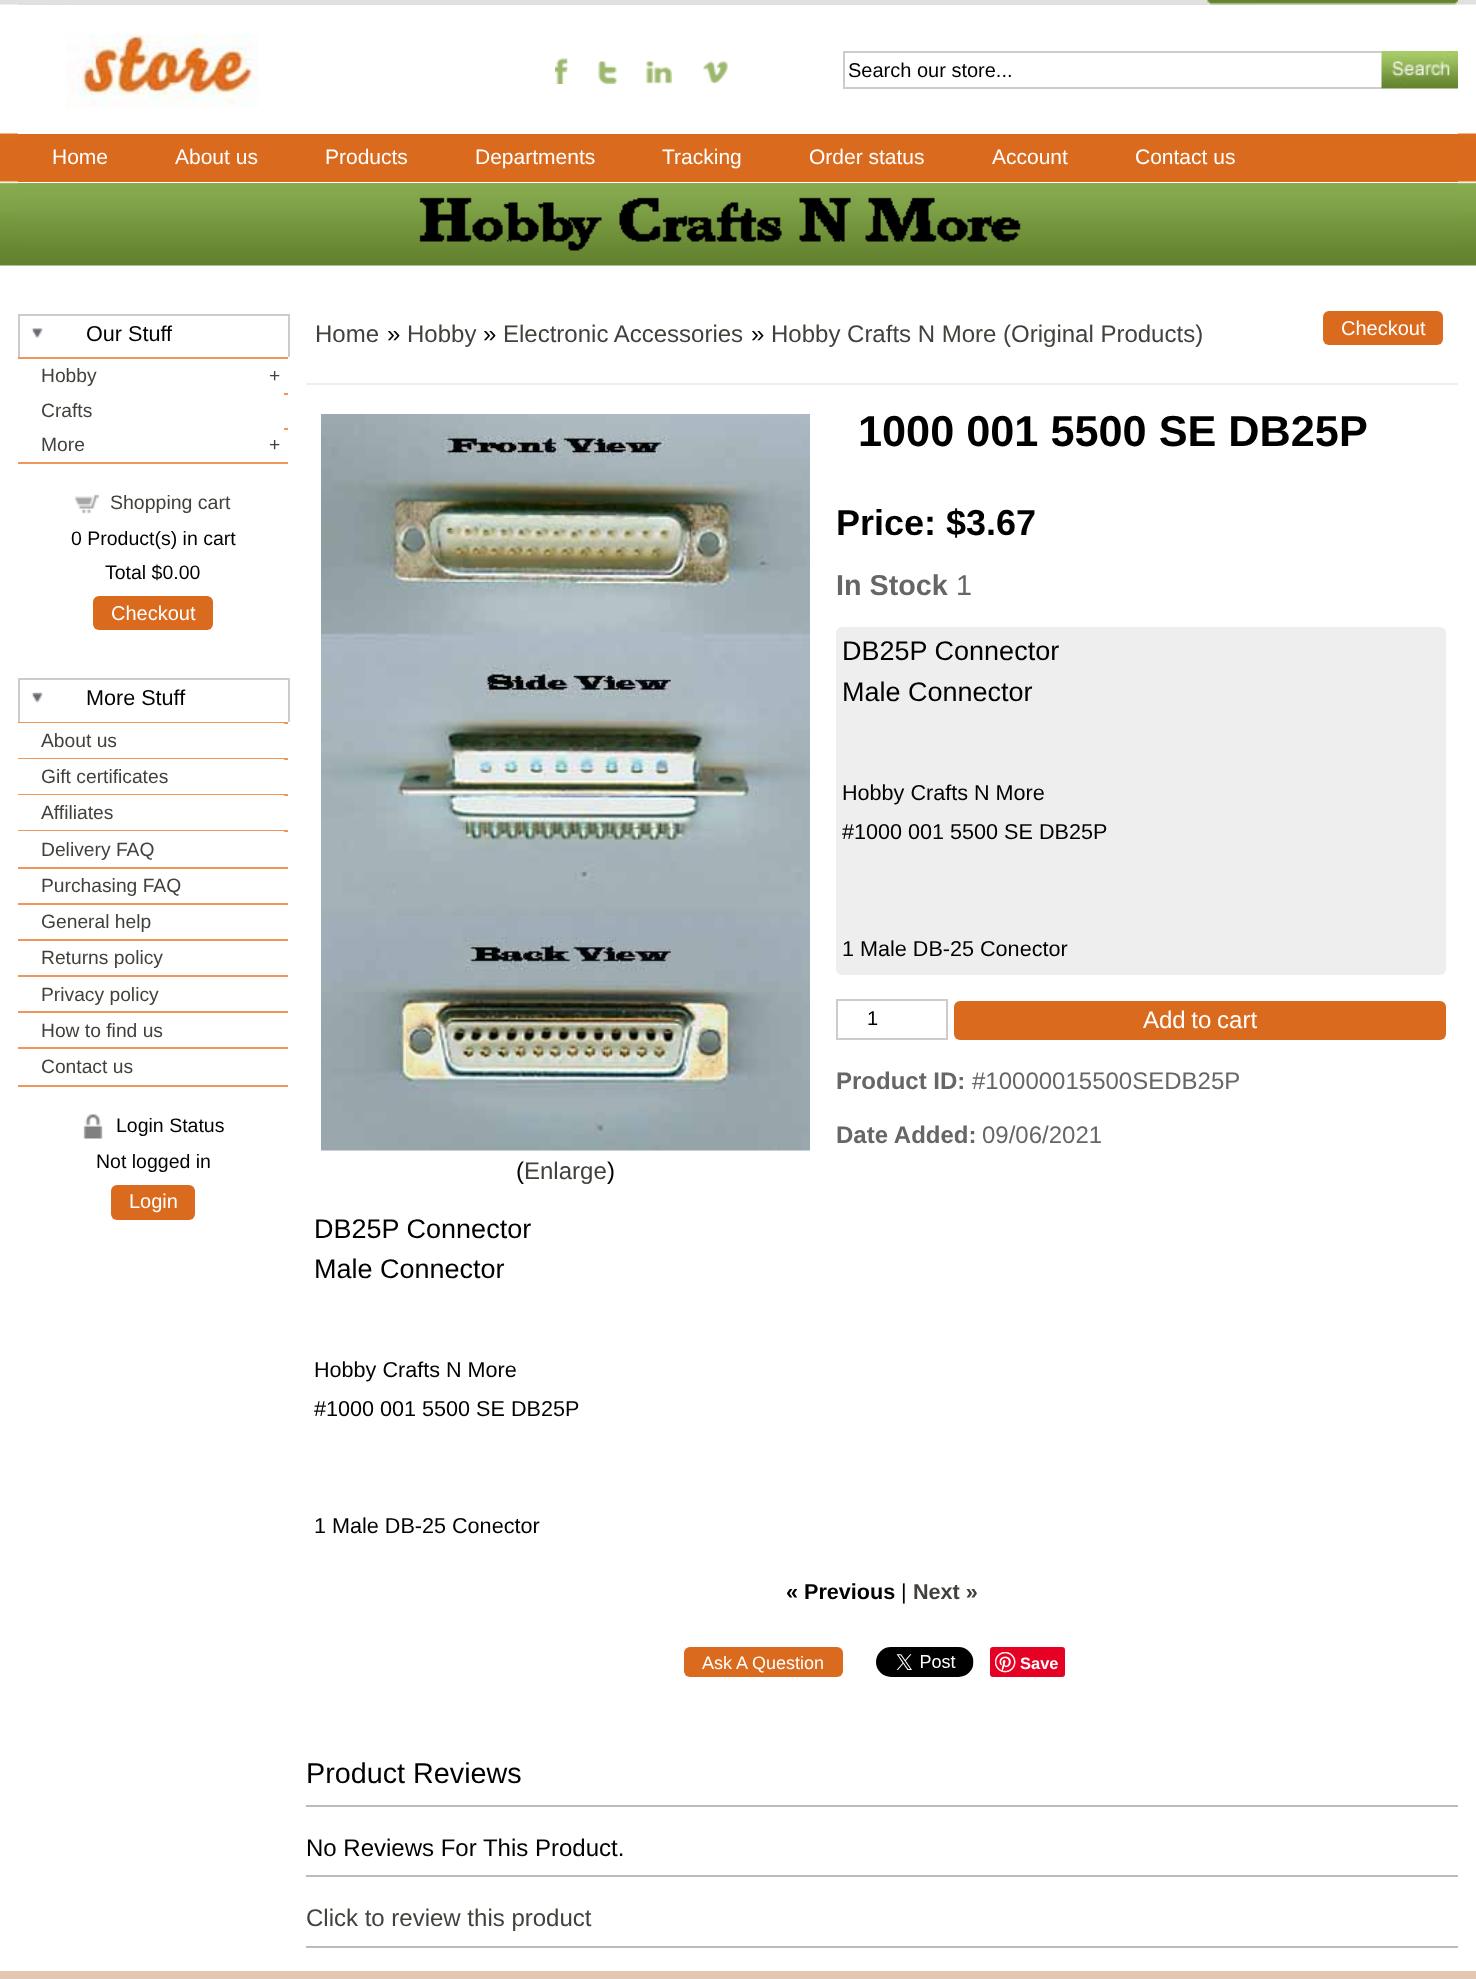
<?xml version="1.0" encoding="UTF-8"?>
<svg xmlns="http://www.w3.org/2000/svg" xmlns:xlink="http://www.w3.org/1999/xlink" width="1476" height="1979">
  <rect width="100%" height="100%" fill="#ffffff" />
  <image x="0" y="0" width="1476" height="266" xlink:href="image1.png" />
  <rect x="18" y="131" width="1440" height="135" fill="#ffffff" />
  <rect x="18" y="4" width="1440" height="1" fill="#e0e0e0" />
  <image x="1207" y="0" width="251" height="5" xlink:href="image2.png" />
  <image x="66" y="34" width="193" height="74" xlink:href="image3.png" />
  <image x="555" y="58" width="14" height="26" xlink:href="image4.png" />
  <image x="598" y="61" width="19" height="23" xlink:href="image5.png" />
  <image x="646" y="61" width="26" height="23" xlink:href="image6.png" />
  <image x="703" y="61" width="25" height="23" xlink:href="image7.png" />
  <rect x="843" y="51" width="539" height="2" fill="#cccccc" />
  <rect x="843" y="87" width="539" height="2" fill="#cccccc" />
  <rect x="843" y="51" width="2" height="38" fill="#cccccc" />
  <image x="1381" y="51" width="77" height="38" xlink:href="image8.png" />
  <rect x="1269" y="134" width="189" height="48" fill="#da6b1d" />
  <rect x="18" y="134" width="1251" height="48" fill="#da6a1e" />
  <image x="18" y="183" width="1440" height="83" xlink:href="image9.png" />
  <image x="419" y="197" width="602" height="54" xlink:href="image10.png" />
  <image x="31" y="328" width="12" height="10" xlink:href="image11.png" />
  <rect x="18" y="314" width="272" height="2" fill="#cccccc" />
  <rect x="288" y="314" width="2" height="43" fill="#cccccc" />
  <rect x="18" y="314" width="2" height="43" fill="#cccccc" />
  <rect x="18" y="357" width="270" height="2" fill="#ef965a" />
  <rect x="284" y="393" width="4" height="2" fill="#ef965a" />
  <rect x="284" y="428" width="4" height="2" fill="#ef965a" />
  <rect x="18" y="462" width="270" height="2" fill="#ef965a" />
  <image x="75" y="494" width="24" height="20" xlink:href="image12.png" />
  <rect x="93" y="596" width="120" height="34" rx="6" fill="#da6a1e" />
  <image x="31" y="692" width="12" height="11" xlink:href="image13.png" />
  <rect x="18" y="678" width="272" height="2" fill="#cccccc" />
  <rect x="288" y="678" width="2" height="44" fill="#cccccc" />
  <rect x="18" y="678" width="2" height="44" fill="#cccccc" />
  <rect x="18" y="722" width="270" height="2" fill="#ef965a" />
  <rect x="18" y="758" width="270" height="2" fill="#ef965a" />
  <rect x="18" y="723" width="266" height="1" fill="#ffffff" />
  <rect x="18" y="794" width="270" height="2" fill="#ef965a" />
  <rect x="18" y="759" width="266" height="1" fill="#ffffff" />
  <rect x="18" y="830" width="270" height="2" fill="#ef965a" />
  <rect x="18" y="795" width="266" height="1" fill="#ffffff" />
  <rect x="18" y="867" width="270" height="2" fill="#ef965a" />
  <rect x="18" y="831" width="266" height="1" fill="#ffffff" />
  <rect x="18" y="903" width="270" height="2" fill="#ef965a" />
  <rect x="18" y="939" width="270" height="2" fill="#ef965a" />
  <rect x="18" y="975" width="270" height="2" fill="#ef965a" />
  <rect x="18" y="1011" width="270" height="2" fill="#ef965a" />
  <rect x="18" y="1047" width="270" height="2" fill="#ef965a" />
  <rect x="18" y="1085" width="270" height="2" fill="#ef965a" />
  <image x="83" y="1114" width="20" height="25" xlink:href="image14.png" />
  <rect x="111" y="1185" width="84" height="35" rx="6" fill="#da6a1e" />
  <rect x="306" y="383" width="1152" height="2" fill="#eeeeee" />
  <rect x="1323" y="311" width="120" height="34" rx="6" fill="#da6a1e" />
  <rect x="836" y="627" width="610" height="348" rx="6" fill="#eeeeee" />
  <rect x="837" y="1000" width="110" height="39" fill="none" stroke="#cccccc" stroke-width="2" />
  <rect x="954" y="1001" width="492" height="39" rx="6" fill="#da6a1e" />
  <image x="321" y="414" width="489" height="737" xlink:href="image15.png" />
  <rect x="684" y="1647" width="159" height="30" rx="6" fill="#da6a1e" />
  <image x="876" y="1647" width="98" height="30" xlink:href="image16.png" />
  <rect x="990" y="1647" width="75" height="30" rx="3" fill="#e60023" />
  <image x="995" y="1652" width="21" height="21" xlink:href="image17.png" />
  <rect x="306" y="1805" width="1152" height="2" fill="#bbbbbb" />
  <rect x="306" y="1875" width="1152" height="2" fill="#bbbbbb" />
  <rect x="306" y="1946" width="1152" height="2" fill="#bbbbbb" />
  <rect y="1971" width="1476" height="8" fill="#e2c7b2" />
  <text x="848" y="77" style="font-family: Liberation Sans; font-size: 20px; fill: #000000">Search our store...</text>
  <text x="52" y="164" style="font-family: Liberation Sans; font-size: 21px; fill: #ffffff">Home</text>
  <text x="175" y="164" style="font-family: Liberation Sans; font-size: 21px; fill: #ffffff">About us</text>
  <text x="325" y="164" style="font-family: Liberation Sans; font-size: 21px; fill: #ffffff">Products</text>
  <text x="475" y="164" style="font-family: Liberation Sans; font-size: 21px; fill: #ffffff">Departments</text>
  <text x="662" y="164" style="font-family: Liberation Sans; font-size: 21px; fill: #ffffff">Tracking</text>
  <text x="809" y="164" style="font-family: Liberation Sans; font-size: 21px; fill: #ffffff">Order status</text>
  <text x="992" y="164" style="font-family: Liberation Sans; font-size: 21px; fill: #ffffff">Account</text>
  <text x="1135" y="164" style="font-family: Liberation Sans; font-size: 21px; fill: #ffffff">Contact us</text>
  <text x="86" y="341" style="font-family: Liberation Sans; font-size: 21.6px; fill: #000000">Our Stuff</text>
  <text x="41" y="382" style="font-family: Liberation Sans; font-size: 19.25px; fill: #42413c">Hobby</text>
  <text x="269" y="382" style="font-family: Liberation Sans; font-size: 19.25px; fill: #42413c">+</text>
  <text x="41" y="417" style="font-family: Liberation Sans; font-size: 19.25px; fill: #42413c">Crafts</text>
  <text x="41" y="451" style="font-family: Liberation Sans; font-size: 19.25px; fill: #42413c">More</text>
  <text x="269" y="451" style="font-family: Liberation Sans; font-size: 19.25px; fill: #42413c">+</text>
  <text x="110" y="509" style="font-family: Liberation Sans; font-size: 19.5px; fill: #42413c">Shopping cart</text>
  <text x="71" y="545" style="font-family: Liberation Sans; font-size: 19.5px; fill: #000000">0 Product(s) in cart</text>
  <text x="105" y="579" style="font-family: Liberation Sans; font-size: 19.5px; fill: #000000">Total $0.00</text>
  <text x="111" y="620" style="font-family: Liberation Sans; font-size: 20px; fill: #ffffff">Checkout</text>
  <text x="86" y="705" style="font-family: Liberation Sans; font-size: 21.6px; fill: #000000">More Stuff</text>
  <text x="41" y="747" style="font-family: Liberation Sans; font-size: 19.25px; fill: #42413c">About us</text>
  <text x="41" y="783" style="font-family: Liberation Sans; font-size: 19.25px; fill: #42413c">Gift certificates</text>
  <text x="41" y="819" style="font-family: Liberation Sans; font-size: 19.25px; fill: #42413c">Affiliates</text>
  <text x="41" y="856" style="font-family: Liberation Sans; font-size: 19.25px; fill: #42413c">Delivery FAQ</text>
  <text x="41" y="892" style="font-family: Liberation Sans; font-size: 19.25px; fill: #42413c">Purchasing FAQ</text>
  <text x="41" y="928" style="font-family: Liberation Sans; font-size: 19.25px; fill: #42413c">General help</text>
  <text x="41" y="964" style="font-family: Liberation Sans; font-size: 19.25px; fill: #42413c">Returns policy</text>
  <text x="41" y="1001" style="font-family: Liberation Sans; font-size: 19.25px; fill: #42413c">Privacy policy</text>
  <text x="41" y="1037" style="font-family: Liberation Sans; font-size: 19.25px; fill: #42413c">How to find us</text>
  <text x="41" y="1073" style="font-family: Liberation Sans; font-size: 19.25px; fill: #42413c">Contact us</text>
  <text x="116" y="1132" style="font-family: Liberation Sans; font-size: 19.5px; fill: #000000">Login Status</text>
  <text x="96" y="1168" style="font-family: Liberation Sans; font-size: 19.5px; fill: #000000">Not logged in</text>
  <text x="129" y="1208" style="font-family: Liberation Sans; font-size: 20px; fill: #ffffff">Login</text>
  <text x="315" y="342" style="font-family: Liberation Sans; font-size: 24px; fill: #42413c">Home</text>
  <text x="387" y="342" style="font-family: Liberation Sans; font-size: 24px; fill: #000000">»</text>
  <text x="407" y="342" style="font-family: Liberation Sans; font-size: 24px; fill: #42413c">Hobby</text>
  <text x="483" y="342" style="font-family: Liberation Sans; font-size: 24px; fill: #000000">»</text>
  <text x="503" y="342" style="font-family: Liberation Sans; font-size: 24px; fill: #42413c">Electronic Accessories</text>
  <text x="751" y="342" style="font-family: Liberation Sans; font-size: 24px; fill: #000000">»</text>
  <text x="771" y="342" style="font-family: Liberation Sans; font-size: 24px; fill: #42413c">Hobby Crafts N More (Original Products)</text>
  <text x="1341" y="335" style="font-family: Liberation Sans; font-size: 20px; fill: #ffffff">Checkout</text>
  <text x="858" y="446" style="font-family: Liberation Sans; font-size: 43.25px; font-weight: bold; fill: #000000">1000 001 5500 SE DB25P</text>
  <text x="836" y="535" style="font-family: Liberation Sans; font-size: 36px; font-weight: bold; fill: #000000">Price: $3.67</text>
  <text x="836" y="595" style="font-family: Liberation Sans; font-size: 28.75px; font-weight: bold; fill: #666666">In Stock</text>
  <text x="956" y="595" style="font-family: Liberation Sans; font-size: 28.75px; fill: #666666">1</text>
  <text x="842" y="660" style="font-family: Liberation Sans; font-size: 27px; fill: #000000">DB25P Connector</text>
  <text x="842" y="701" style="font-family: Liberation Sans; font-size: 27px; fill: #000000">Male Connector</text>
  <text x="842" y="800" style="font-family: Liberation Sans; font-size: 21.6px; fill: #000000">Hobby Crafts N More</text>
  <text x="842" y="839" style="font-family: Liberation Sans; font-size: 21.6px; fill: #000000">#1000 001 5500 SE DB25P</text>
  <text x="842" y="956" style="font-family: Liberation Sans; font-size: 21.6px; fill: #000000">1 Male DB-25 Conector</text>
  <text x="867" y="1025" style="font-family: Liberation Sans; font-size: 20px; fill: #000000">1</text>
  <text x="1143" y="1028" word-spacing="-1" style="font-family: Liberation Sans; font-size: 24px; fill: #ffffff">Add to cart</text>
  <text x="836" y="1089" style="font-family: Liberation Sans; font-size: 24px; font-weight: bold; fill: #666666">Product ID:</text>
  <text x="972" y="1089" style="font-family: Liberation Sans; font-size: 24px; fill: #666666">#10000015500SEDB25P</text>
  <text x="836" y="1143" style="font-family: Liberation Sans; font-size: 24px; font-weight: bold; fill: #666666">Date Added:</text>
  <text x="982" y="1143" style="font-family: Liberation Sans; font-size: 24px; fill: #666666">09/06/2021</text>
  <text x="516" y="1179" style="font-family: Liberation Sans; font-size: 24px; fill: #000000">(</text>
  <text x="524" y="1179" style="font-family: Liberation Sans; font-size: 24px; fill: #42413c">Enlarge</text>
  <text x="607" y="1179" style="font-family: Liberation Sans; font-size: 24px; fill: #000000">)</text>
  <text x="314" y="1238" style="font-family: Liberation Sans; font-size: 27px; fill: #000000">DB25P Connector</text>
  <text x="314" y="1278" style="font-family: Liberation Sans; font-size: 27px; fill: #000000">Male Connector</text>
  <text x="314" y="1377" style="font-family: Liberation Sans; font-size: 21.6px; fill: #000000">Hobby Crafts N More</text>
  <text x="314" y="1416" style="font-family: Liberation Sans; font-size: 21.6px; fill: #000000">#1000 001 5500 SE DB25P</text>
  <text x="314" y="1533" style="font-family: Liberation Sans; font-size: 21.6px; fill: #000000">1 Male DB-25 Conector</text>
  <text x="786" y="1599" style="font-family: Liberation Sans; font-size: 21.6px; font-weight: bold; fill: #000000">« Previous</text>
  <text x="901" y="1599" style="font-family: Liberation Sans; font-size: 21.6px; fill: #000000">|</text>
  <text x="913" y="1599" style="font-family: Liberation Sans; font-size: 21.6px; font-weight: bold; fill: #42413c">Next »</text>
  <text x="702" y="1669" style="font-family: Liberation Sans; font-size: 18px; fill: #ffffff">Ask A Question</text>
  <text x="1020" y="1669" style="font-family: Liberation Sans; font-size: 16.5px; font-weight: bold; fill: #ffffff">Save</text>
  <text x="306" y="1783" style="font-family: Liberation Sans; font-size: 28.75px; fill: #000000">Product Reviews</text>
  <text x="306" y="1856" style="font-family: Liberation Sans; font-size: 24px; fill: #000000">No Reviews For This Product.</text>
  <text x="306" y="1926" style="font-family: Liberation Sans; font-size: 24px; fill: #42413c">Click to review this product</text>
</svg>
